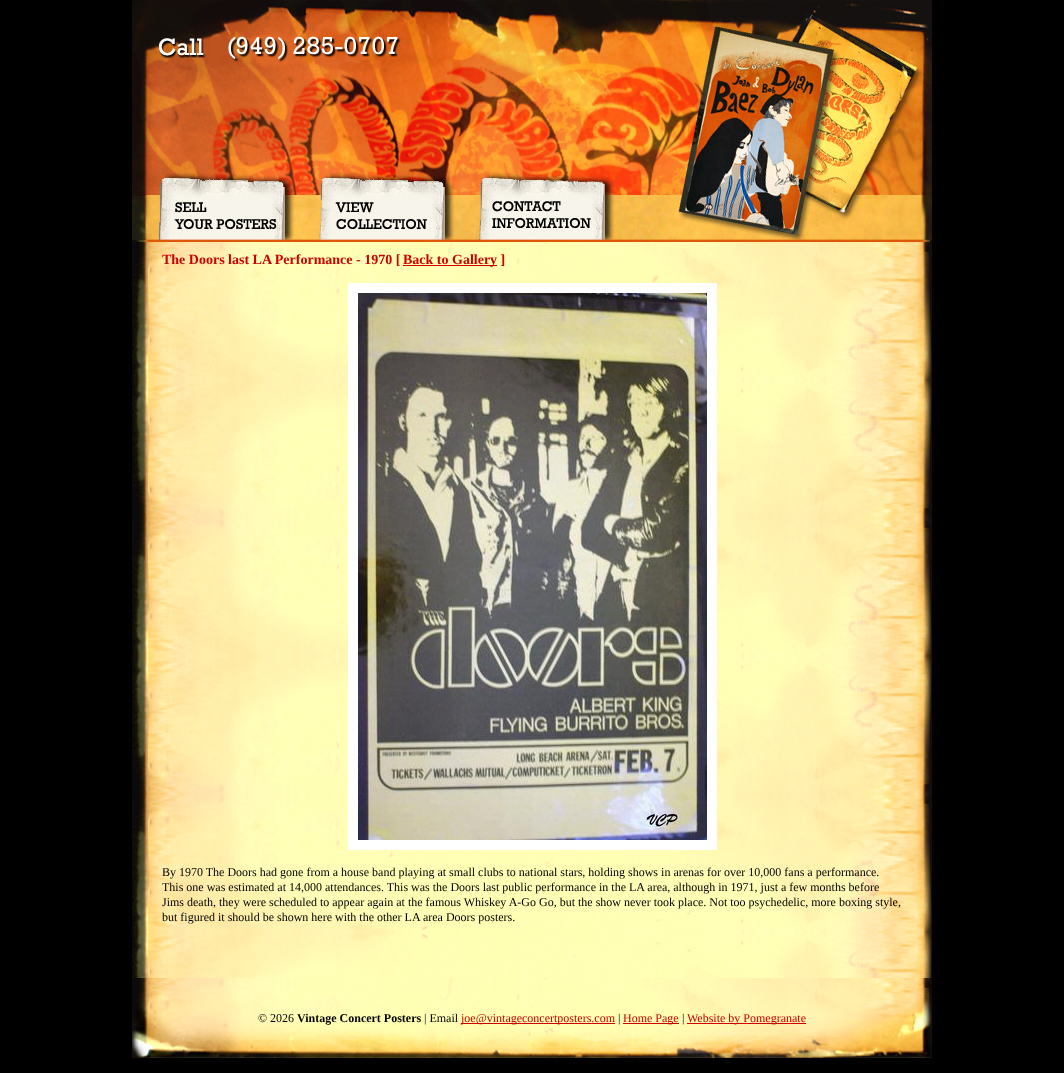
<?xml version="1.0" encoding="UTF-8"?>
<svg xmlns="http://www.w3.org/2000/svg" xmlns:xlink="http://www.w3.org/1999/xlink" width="1064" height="1073">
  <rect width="100%" height="100%" fill="#000000" />
  <image x="132" y="0" width="800" height="242" xlink:href="image1.png" />
  <image x="132" y="242" width="800" height="736" xlink:href="image2.png" />
  <rect x="403" y="265" width="94" height="1" fill="#cc0000" />
  <rect x="353" y="288" width="359" height="557" fill="none" stroke="#ffffff" stroke-width="10" />
  <image x="358" y="293" width="349" height="547" xlink:href="image3.png" />
  <image x="132" y="978" width="800" height="80" xlink:href="image4.png" />
  <rect x="461" y="1023" width="154" height="1" fill="#cc0000" />
  <rect x="623" y="1023" width="56" height="1" fill="#cc0000" />
  <rect x="687" y="1023" width="119" height="1" fill="#cc0000" />
  <text x="162" y="264" style="font-family: Liberation Serif; font-size: 14px; font-weight: bold; fill: #cc0000">The Doors last LA Performance - 1970 [</text>
  <text x="403" y="264" style="font-family: Liberation Serif; font-size: 14px; font-weight: bold; fill: #cc0000">Back to Gallery ]</text>
  <text x="162" y="876" style="font-family: Liberation Serif; font-size: 12px; fill: #000000">By 1970 The Doors had gone from a house band playing at small clubs to national stars, holding shows in arenas for over 10,000 fans a performance.</text>
  <text x="162" y="891" style="font-family: Liberation Serif; font-size: 12px; fill: #000000">This one was estimated at 14,000 attendances. This was the Doors last public performance in the LA area, although in 1971, just a few months before</text>
  <text x="162" y="906" style="font-family: Liberation Serif; font-size: 12px; fill: #000000">Jims death, they were scheduled to appear again at the famous Whiskey A-Go Go, but the show never took place. Not too psychedelic, more boxing style,</text>
  <text x="162" y="921" style="font-family: Liberation Serif; font-size: 12px; fill: #000000">but figured it should be shown here with the other LA area Doors posters.</text>
  <text x="258" y="1022" style="font-family: Liberation Serif; font-size: 12px; fill: #000000">© 2026</text>
  <text x="297" y="1022" style="font-family: Liberation Serif; font-size: 12px; font-weight: bold; fill: #000000">Vintage Concert Posters</text>
  <text x="424" y="1022" style="font-family: Liberation Serif; font-size: 12px; fill: #000000">| Email</text>
  <text x="461" y="1022" style="font-family: Liberation Serif; font-size: 12px; fill: #cc0000">joe@vintageconcertposters.com</text>
  <text x="618" y="1022" style="font-family: Liberation Serif; font-size: 12px; fill: #000000">|</text>
  <text x="623" y="1022" style="font-family: Liberation Serif; font-size: 12px; fill: #cc0000">Home Page</text>
  <text x="682" y="1022" style="font-family: Liberation Serif; font-size: 12px; fill: #000000">|</text>
  <text x="687" y="1022" style="font-family: Liberation Serif; font-size: 12px; fill: #cc0000">Website by Pomegranate</text>
</svg>
